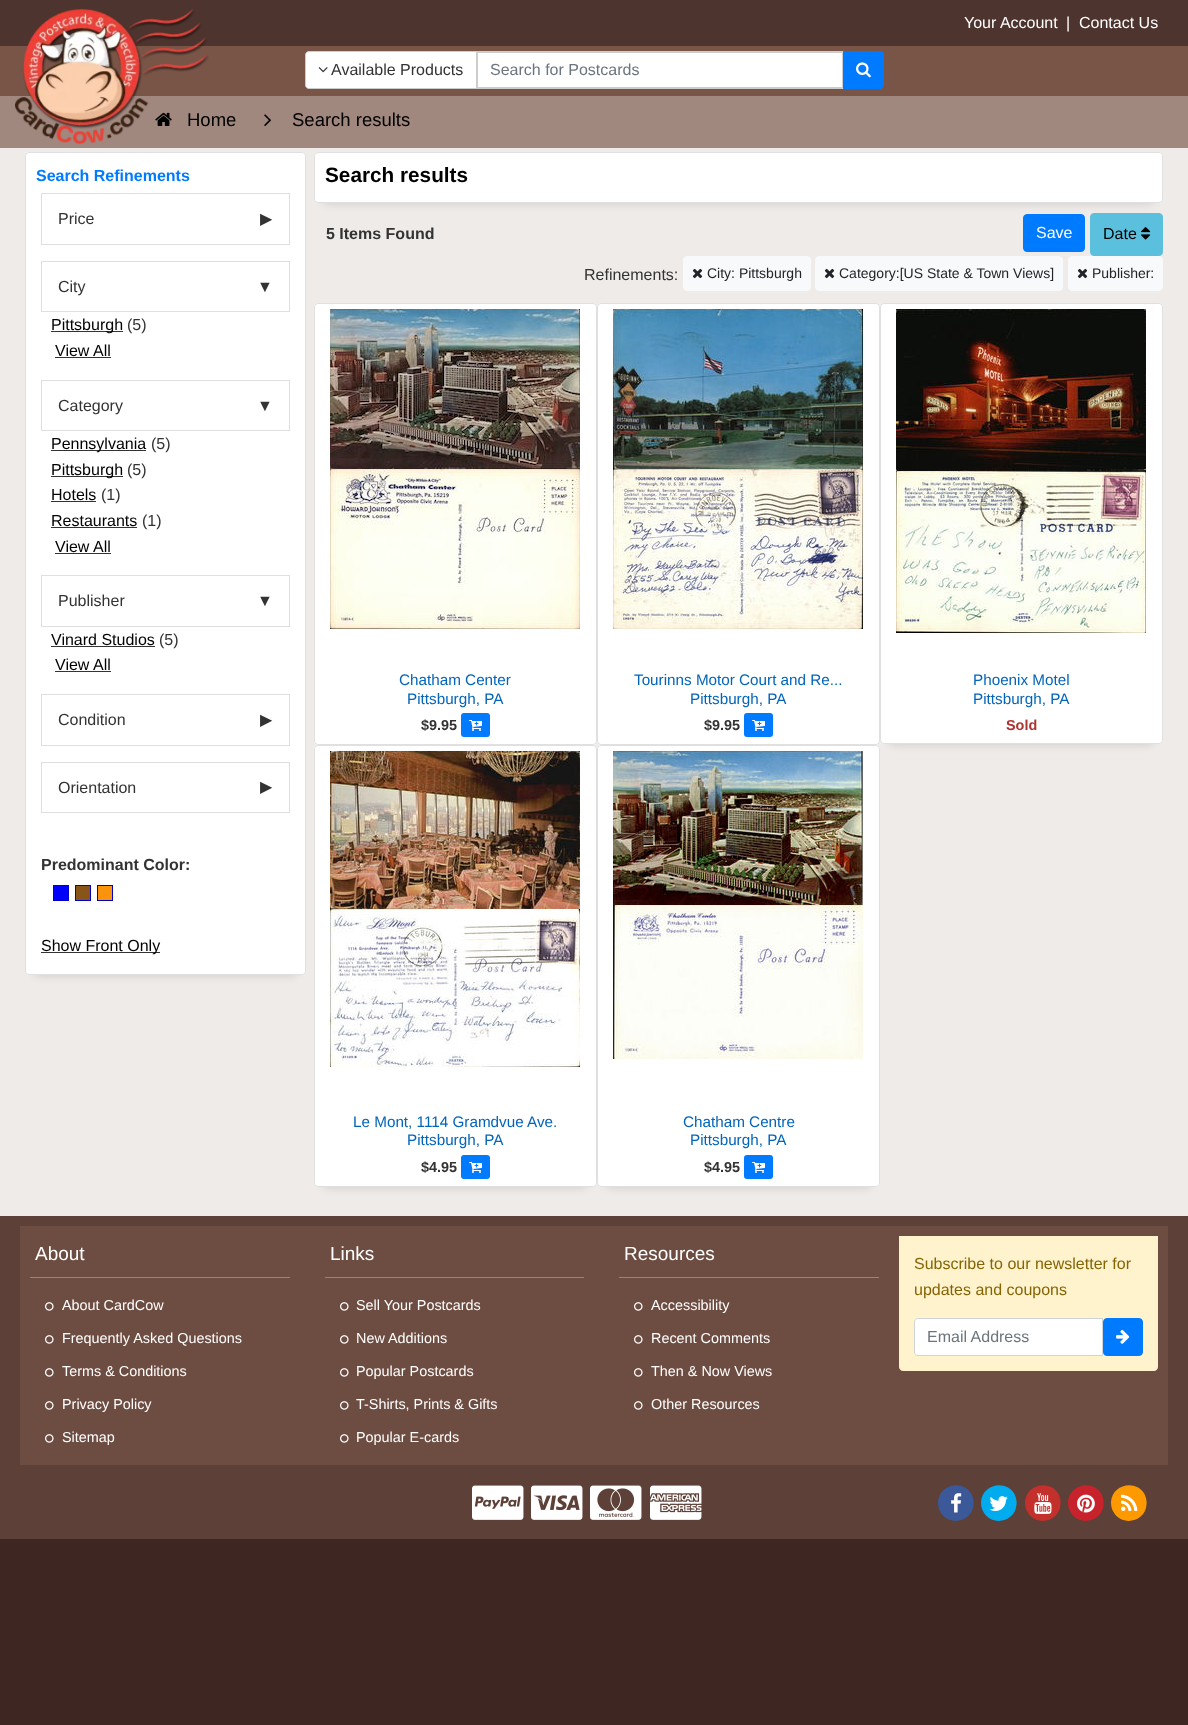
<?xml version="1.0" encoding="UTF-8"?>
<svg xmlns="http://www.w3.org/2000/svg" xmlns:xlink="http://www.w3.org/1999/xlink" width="1188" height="1725">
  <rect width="100%" height="100%" fill="#3e2723" />
  <rect width="1188" height="46" fill="#4e342e" />
  <rect y="46" width="1188" height="50" fill="#795548" />
  <rect x="477" y="52" width="366" height="36" fill="#ffffff" stroke="#cccccc" stroke-width="2" />
  <path d="M 309 51.5 h 167.5 v 37 h -167.5 c -2 0 -3.5 -1.5 -3.5 -3.5 v -30 c 0 -2 1.5 -3.5 3.5 -3.5 z" fill="#ffffff" stroke="#cccccc" />
  <image x="318" y="67" width="10" height="6" xlink:href="image2.png" />
  <path d="M 843.5 51.5 h 36.5 c 2 0 3.5 1.5 3.5 3.5 v 30 c 0 2 -1.5 3.5 -3.5 3.5 h -36.5 z" fill="#007bff" stroke="#007bff" />
  <image x="856" y="62" width="15" height="16" xlink:href="image3.png" />
  <rect y="96" width="1188" height="52" fill="#a1887f" />
  <image x="155" y="112" width="17" height="14" xlink:href="image4.png" />
  <image x="264" y="114" width="7" height="12" xlink:href="image5.png" />
  <rect y="148" width="1188" height="1068" fill="#efebe9" />
  <rect x="35" y="172" width="261" height="803" fill="#000000" fill-opacity="0.15" filter="blur(5px)" />
  <rect x="25" y="152" width="281" height="823" rx="4" fill="#ffffff" />
  <rect x="25.5" y="152.5" width="280" height="822" rx="3.5" fill="none" stroke="#000000" stroke-opacity="0.12" />
  <rect x="41.5" y="193.5" width="248" height="51" fill="none" stroke="#dfdfdf" />
  <rect x="41.5" y="261.5" width="248" height="50" fill="none" stroke="#dfdfdf" />
  <rect x="51" y="331" width="72" height="1" fill="#333333" />
  <rect x="55" y="357" width="56" height="1" fill="#333333" />
  <rect x="41.5" y="380.5" width="248" height="50" fill="none" stroke="#dfdfdf" />
  <rect x="51" y="450" width="95" height="1" fill="#333333" />
  <rect x="51" y="476" width="72" height="1" fill="#333333" />
  <rect x="51" y="501" width="45" height="1" fill="#333333" />
  <rect x="51" y="527" width="86" height="1" fill="#333333" />
  <rect x="55" y="553" width="56" height="1" fill="#333333" />
  <rect x="41.5" y="575.5" width="248" height="51" fill="none" stroke="#dfdfdf" />
  <rect x="51" y="646" width="104" height="1" fill="#333333" />
  <rect x="55" y="671" width="56" height="1" fill="#333333" />
  <rect x="41.5" y="694.5" width="248" height="51" fill="none" stroke="#dfdfdf" />
  <rect x="41.5" y="762.5" width="248" height="50" fill="none" stroke="#dfdfdf" />
  <rect x="53.5" y="885.5" width="15" height="15" fill="#0000ff" stroke="#0000cc" />
  <rect x="75.5" y="885.5" width="15" height="15" fill="#885418" stroke="#0000cc" />
  <rect x="97.5" y="885.5" width="15" height="15" fill="#fb940b" stroke="#0000cc" />
  <rect x="41" y="952" width="119" height="1" fill="#333333" />
  <rect x="324" y="172" width="829" height="31" fill="#000000" fill-opacity="0.15" filter="blur(5px)" />
  <rect x="314" y="152" width="849" height="51" rx="4" fill="#ffffff" />
  <rect x="314.5" y="152.5" width="848" height="50" rx="3.5" fill="none" stroke="#000000" stroke-opacity="0.12" />
  <rect x="1023.5" y="214.5" width="61" height="37" rx="3.5" fill="#007bff" stroke="#007bff" />
  <rect x="1090.5" y="213.5" width="72" height="42" rx="3.5" fill="#5bc0de" stroke="#5bc0de" />
  <image x="1141" y="227" width="10" height="13" xlink:href="image6.png" />
  <rect x="683.5" y="256.5" width="127" height="34" rx="3.5" fill="#f8f9fa" stroke="#f8f9fa" />
  <image x="692" y="268" width="11" height="11" xlink:href="image7.png" />
  <rect x="815.5" y="256.5" width="247" height="34" rx="3.5" fill="#f8f9fa" stroke="#f8f9fa" />
  <image x="824" y="268" width="11" height="11" xlink:href="image7.png" />
  <rect x="1068.5" y="256.5" width="94" height="34" rx="3.5" fill="#f8f9fa" stroke="#f8f9fa" />
  <image x="1077" y="268" width="11" height="11" xlink:href="image7.png" />
  <rect x="314" y="303" width="283" height="442" rx="4" fill="#ffffff" />
  <rect x="314.5" y="303.5" width="282" height="441" rx="3.5" fill="none" stroke="#000000" stroke-opacity="0.12" />
  <image x="330" y="309" width="250" height="160" xlink:href="image8.png" />
  <image x="330" y="469" width="250" height="160" xlink:href="image9.png" />
  <rect x="461" y="713" width="29" height="24" rx="3" fill="#007bff" />
  <image x="469" y="720" width="13" height="11" xlink:href="image10.png" />
  <rect x="597" y="303" width="283" height="442" rx="4" fill="#ffffff" />
  <rect x="597.5" y="303.5" width="282" height="441" rx="3.5" fill="none" stroke="#000000" stroke-opacity="0.12" />
  <image x="613" y="309" width="250" height="160" xlink:href="image11.png" />
  <image x="613" y="469" width="250" height="160" xlink:href="image12.png" />
  <rect x="744" y="713" width="29" height="24" rx="3" fill="#007bff" />
  <image x="752" y="720" width="13" height="11" xlink:href="image10.png" />
  <rect x="890" y="323" width="263" height="421" fill="#000000" fill-opacity="0.15" filter="blur(5px)" />
  <rect x="880" y="303" width="283" height="441" rx="4" fill="#ffffff" />
  <rect x="880.5" y="303.5" width="282" height="440" rx="3.5" fill="none" stroke="#000000" stroke-opacity="0.12" />
  <image x="896" y="309" width="250" height="162" xlink:href="image13.png" />
  <image x="896" y="471" width="250" height="162" xlink:href="image14.png" />
  <rect x="324" y="765" width="263" height="422" fill="#000000" fill-opacity="0.15" filter="blur(5px)" />
  <rect x="314" y="745" width="283" height="442" rx="4" fill="#ffffff" />
  <rect x="314.5" y="745.5" width="282" height="441" rx="3.5" fill="none" stroke="#000000" stroke-opacity="0.12" />
  <image x="330" y="751" width="250" height="158" xlink:href="image15.png" />
  <image x="330" y="909" width="250" height="158" xlink:href="image16.png" />
  <rect x="461" y="1155" width="29" height="24" rx="3" fill="#007bff" />
  <image x="469" y="1162" width="13" height="11" xlink:href="image10.png" />
  <rect x="607" y="765" width="263" height="422" fill="#000000" fill-opacity="0.15" filter="blur(5px)" />
  <rect x="597" y="745" width="283" height="442" rx="4" fill="#ffffff" />
  <rect x="597.5" y="745.5" width="282" height="441" rx="3.5" fill="none" stroke="#000000" stroke-opacity="0.12" />
  <image x="613" y="751" width="250" height="154" xlink:href="image17.png" />
  <image x="613" y="905" width="250" height="154" xlink:href="image18.png" />
  <rect x="744" y="1155" width="29" height="24" rx="3" fill="#007bff" />
  <image x="752" y="1162" width="13" height="11" xlink:href="image10.png" />
  <rect y="1216" width="1188" height="323" fill="#5d4037" />
  <rect x="20" y="1226" width="1148" height="239" fill="#6d4c41" />
  <rect x="30" y="1277" width="260" height="1" fill="#99827a" />
  <image x="45" y="1302" width="9" height="9" xlink:href="image19.png" />
  <image x="45" y="1335" width="9" height="9" xlink:href="image19.png" />
  <image x="45" y="1368" width="9" height="9" xlink:href="image19.png" />
  <image x="45" y="1401" width="9" height="9" xlink:href="image19.png" />
  <image x="45" y="1434" width="9" height="9" xlink:href="image19.png" />
  <rect x="325" y="1277" width="259" height="1" fill="#99827a" />
  <image x="340" y="1302" width="9" height="9" xlink:href="image19.png" />
  <image x="340" y="1335" width="9" height="9" xlink:href="image19.png" />
  <image x="340" y="1368" width="9" height="9" xlink:href="image19.png" />
  <image x="340" y="1401" width="9" height="9" xlink:href="image19.png" />
  <image x="340" y="1434" width="9" height="9" xlink:href="image19.png" />
  <rect x="619" y="1277" width="260" height="1" fill="#99827a" />
  <image x="634" y="1302" width="9" height="9" xlink:href="image19.png" />
  <image x="634" y="1335" width="9" height="9" xlink:href="image19.png" />
  <image x="634" y="1368" width="9" height="9" xlink:href="image19.png" />
  <image x="634" y="1401" width="9" height="9" xlink:href="image19.png" />
  <path d="M 899 1236 h 259 v 131 c 0 2 -2 4 -4 4 h -251 c -2 0 -4 -2 -4 -4 z" fill="#fff3cd" />
  <path d="M 918 1318.5 h 184.5 v 37 h -184.5 c -2 0 -3.5 -1.5 -3.5 -3.5 v -30 c 0 -2 1.5 -3.5 3.5 -3.5 z" fill="#ffffff" stroke="#ced4da" />
  <rect x="1103.5" y="1318.5" width="39" height="37" rx="3.5" fill="#007bff" stroke="#007bff" />
  <image x="1116" y="1329" width="14" height="15" xlink:href="image20.png" />
  <image x="472" y="1485" width="52" height="35" xlink:href="image21.png" />
  <image x="531" y="1485" width="52" height="35" xlink:href="image22.png" />
  <image x="590" y="1485" width="52" height="35" xlink:href="image23.png" />
  <image x="650" y="1485" width="52" height="35" xlink:href="image24.png" />
  <path d="M 971.5 1494 c 1.5 3.5 2.5 7 2 10.5 c -1 17.5 -24.5 22.5 -33 7.5 c -2 -3 -2.5 -6.5 -2.5 -10 c 1 -17.5 24.5 -23 33.5 -8 z" fill="#3b5998" />
  <image x="951" y="1493" width="11" height="20" xlink:href="image25.png" />
  <path d="M 1014.5 1494 c 1.5 3.5 2.5 7 2 10.5 c -1 17.5 -24.5 22.5 -33 7.5 c -2 -3 -2.5 -6.5 -2.5 -10 c 1 -17.5 24.5 -23 33.5 -8 z" fill="#00acee" />
  <image x="989" y="1496" width="19" height="15" xlink:href="image26.png" />
  <path d="M 1058.5 1494 c 1.5 3.5 2.5 7 2 10.5 c -1 17.5 -24.5 22.5 -33 7.5 c -2 -3 -2.5 -6.5 -2.5 -10 c 1 -17.5 24.5 -23 33.5 -8 z" fill="#c4302b" />
  <image x="1034" y="1493" width="18" height="21" xlink:href="image27.png" />
  <path d="M 1101.5 1494 c 1.5 3.5 2.5 7 2 10.5 c -1 17.5 -24.5 22.5 -33 7.5 c -2 -3 -2.5 -6.5 -2.5 -10 c 1 -17.5 24.5 -23 33.5 -8 z" fill="#c8232c" />
  <image x="1077" y="1494" width="18" height="19" xlink:href="image28.png" />
  <path d="M 1144.5 1494 c 1.5 3.5 2.5 7 2 10.5 c -1 17.5 -24.5 22.5 -33 7.5 c -2 -3 -2.5 -6.5 -2.5 -10 c 1 -17.5 24.5 -23 33.5 -8 z" fill="#fe9900" />
  <image x="1121" y="1494" width="17" height="17" xlink:href="image29.png" />
  <text x="964" y="28" style="font-family: Liberation Sans; font-size: 16px; fill: #ffffff">Your Account</text>
  <text x="1066" y="28" style="font-family: Liberation Sans; font-size: 16px; fill: #ffffff">|</text>
  <text x="1079" y="28" style="font-family: Liberation Sans; font-size: 16px; fill: #ffffff">Contact Us</text>
  <text x="331" y="75" style="font-family: Liberation Sans; font-size: 16px; fill: #333333">Available Products</text>
  <text x="490" y="75" style="font-family: Liberation Sans; font-size: 16px; fill: #6c757d">Search for Postcards</text>
  <text x="187" y="126" style="font-family: Liberation Sans; font-size: 18.5px; fill: #000000">Home</text>
  <image x="15" y="8" width="194" height="136" xlink:href="image1.png" />
  <text x="292" y="126" style="font-family: Liberation Sans; font-size: 18.5px; fill: #000000">Search results</text>
  <text x="36" y="181" style="font-family: Liberation Sans; font-size: 16px; font-weight: bold; fill: #007bff">Search Refinements</text>
  <text x="58" y="224" style="font-family: Liberation Sans; font-size: 16px; fill: #333333">Price</text>
  <text x="260" y="224" style="font-family: DejaVu Sans; font-size: 16px; fill: #333333">▶</text>
  <text x="58" y="292" style="font-family: Liberation Sans; font-size: 16px; fill: #333333">City</text>
  <text x="257" y="292" style="font-family: Liberation Sans; font-size: 16px; fill: #333333">▼</text>
  <text x="51" y="330" style="font-family: Liberation Sans; font-size: 16px; fill: #000000">Pittsburgh</text>
  <text x="127" y="330" style="font-family: Liberation Sans; font-size: 16px; fill: #333333">(5)</text>
  <text x="55" y="356" style="font-family: Liberation Sans; font-size: 16px; fill: #000000">View All</text>
  <text x="58" y="411" style="font-family: Liberation Sans; font-size: 16px; fill: #333333">Category</text>
  <text x="257" y="411" style="font-family: Liberation Sans; font-size: 16px; fill: #333333">▼</text>
  <text x="51" y="449" style="font-family: Liberation Sans; font-size: 16px; fill: #000000">Pennsylvania</text>
  <text x="151" y="449" style="font-family: Liberation Sans; font-size: 16px; fill: #333333">(5)</text>
  <text x="51" y="475" style="font-family: Liberation Sans; font-size: 16px; fill: #000000">Pittsburgh</text>
  <text x="127" y="475" style="font-family: Liberation Sans; font-size: 16px; fill: #333333">(5)</text>
  <text x="51" y="500" style="font-family: Liberation Sans; font-size: 16px; fill: #000000">Hotels</text>
  <text x="101" y="500" style="font-family: Liberation Sans; font-size: 16px; fill: #333333">(1)</text>
  <text x="51" y="526" style="font-family: Liberation Sans; font-size: 16px; fill: #000000">Restaurants</text>
  <text x="142" y="526" style="font-family: Liberation Sans; font-size: 16px; fill: #333333">(1)</text>
  <text x="55" y="552" style="font-family: Liberation Sans; font-size: 16px; fill: #000000">View All</text>
  <text x="58" y="606" style="font-family: Liberation Sans; font-size: 16px; fill: #333333">Publisher</text>
  <text x="257" y="606" style="font-family: Liberation Sans; font-size: 16px; fill: #333333">▼</text>
  <text x="51" y="645" style="font-family: Liberation Sans; font-size: 16px; fill: #000000">Vinard Studios</text>
  <text x="159" y="645" style="font-family: Liberation Sans; font-size: 16px; fill: #333333">(5)</text>
  <text x="55" y="670" style="font-family: Liberation Sans; font-size: 16px; fill: #000000">View All</text>
  <text x="58" y="725" style="font-family: Liberation Sans; font-size: 16px; fill: #333333">Condition</text>
  <text x="260" y="725" style="font-family: DejaVu Sans; font-size: 16px; fill: #333333">▶</text>
  <text x="58" y="793" style="font-family: Liberation Sans; font-size: 16px; fill: #333333">Orientation</text>
  <text x="260" y="792" style="font-family: DejaVu Sans; font-size: 16px; fill: #333333">▶</text>
  <text x="41" y="870" style="font-family: Liberation Sans; font-size: 16px; font-weight: bold; fill: #333333">Predominant Color:</text>
  <text x="41" y="951" style="font-family: Liberation Sans; font-size: 16px; fill: #000000">Show Front Only</text>
  <text x="325" y="182" style="font-family: Liberation Sans; font-size: 20.75px; font-weight: bold; fill: #000000">Search results</text>
  <text x="326" y="239" style="font-family: Liberation Sans; font-size: 16px; font-weight: bold; fill: #333333">5 Items Found</text>
  <text x="1036" y="238" style="font-family: Liberation Sans; font-size: 16px; fill: #ffffff">Save</text>
  <text x="1103" y="239" style="font-family: Liberation Sans; font-size: 16px; fill: #000000">Date</text>
  <text x="584" y="280" style="font-family: Liberation Sans; font-size: 16px; fill: #333333">Refinements:</text>
  <text x="707" y="278" style="font-family: Liberation Sans; font-size: 14px; fill: #212529">City: Pittsburgh</text>
  <text x="839" y="278" style="font-family: Liberation Sans; font-size: 14px; fill: #212529">Category:[US State &amp; Town Views]</text>
  <text x="1092" y="278" style="font-family: Liberation Sans; font-size: 14px; fill: #212529">Publisher:</text>
  <text x="399" y="685" style="font-family: Liberation Sans; font-size: 15.25px; fill: #0265ba">Chatham Center</text>
  <text x="407" y="704" style="font-family: Liberation Sans; font-size: 15.25px; fill: #0265ba">Pittsburgh, PA</text>
  <text x="421" y="730" style="font-family: Liberation Sans; font-size: 14.4px; font-weight: bold; fill: #333333">$9.95</text>
  <text x="634" y="685" style="font-family: Liberation Sans; font-size: 15.25px; fill: #0265ba">Tourinns Motor Court and Re...</text>
  <text x="690" y="704" style="font-family: Liberation Sans; font-size: 15.25px; fill: #0265ba">Pittsburgh, PA</text>
  <text x="704" y="730" style="font-family: Liberation Sans; font-size: 14.4px; font-weight: bold; fill: #333333">$9.95</text>
  <text x="973" y="685" style="font-family: Liberation Sans; font-size: 15.25px; fill: #0265ba">Phoenix Motel</text>
  <text x="973" y="704" style="font-family: Liberation Sans; font-size: 15.25px; fill: #0265ba">Pittsburgh, PA</text>
  <text x="1006" y="730" style="font-family: Liberation Sans; font-size: 14.4px; font-weight: bold; fill: #ad3431">Sold</text>
  <text x="353" y="1127" style="font-family: Liberation Sans; font-size: 15.25px; fill: #0265ba">Le Mont, 1114 Gramdvue Ave.</text>
  <text x="407" y="1145" style="font-family: Liberation Sans; font-size: 15.25px; fill: #0265ba">Pittsburgh, PA</text>
  <text x="421" y="1172" style="font-family: Liberation Sans; font-size: 14.4px; font-weight: bold; fill: #333333">$4.95</text>
  <text x="683" y="1127" style="font-family: Liberation Sans; font-size: 15.25px; fill: #0265ba">Chatham Centre</text>
  <text x="690" y="1145" style="font-family: Liberation Sans; font-size: 15.25px; fill: #0265ba">Pittsburgh, PA</text>
  <text x="704" y="1172" style="font-family: Liberation Sans; font-size: 14.4px; font-weight: bold; fill: #333333">$4.95</text>
  <text x="35" y="1260" style="font-family: Liberation Sans; font-size: 19px; fill: #ffffff">About</text>
  <text x="62" y="1310" style="font-family: Liberation Sans; font-size: 14.4px; fill: #ffffff">About CardCow</text>
  <text x="62" y="1343" style="font-family: Liberation Sans; font-size: 14.4px; fill: #ffffff">Frequently Asked Questions</text>
  <text x="62" y="1376" style="font-family: Liberation Sans; font-size: 14.4px; fill: #ffffff">Terms &amp; Conditions</text>
  <text x="62" y="1409" style="font-family: Liberation Sans; font-size: 14.4px; fill: #ffffff">Privacy Policy</text>
  <text x="62" y="1442" style="font-family: Liberation Sans; font-size: 14.4px; fill: #ffffff">Sitemap</text>
  <text x="330" y="1260" style="font-family: Liberation Sans; font-size: 19px; fill: #ffffff">Links</text>
  <text x="356" y="1310" style="font-family: Liberation Sans; font-size: 14.4px; fill: #ffffff">Sell Your Postcards</text>
  <text x="356" y="1343" style="font-family: Liberation Sans; font-size: 14.4px; fill: #ffffff">New Additions</text>
  <text x="356" y="1376" style="font-family: Liberation Sans; font-size: 14.4px; fill: #ffffff">Popular Postcards</text>
  <text x="356" y="1409" style="font-family: Liberation Sans; font-size: 14.4px; fill: #ffffff">T-Shirts, Prints &amp; Gifts</text>
  <text x="356" y="1442" style="font-family: Liberation Sans; font-size: 14.4px; fill: #ffffff">Popular E-cards</text>
  <text x="624" y="1260" style="font-family: Liberation Sans; font-size: 19px; fill: #ffffff">Resources</text>
  <text x="651" y="1310" style="font-family: Liberation Sans; font-size: 14.4px; fill: #ffffff">Accessibility</text>
  <text x="651" y="1343" style="font-family: Liberation Sans; font-size: 14.4px; fill: #ffffff">Recent Comments</text>
  <text x="651" y="1376" style="font-family: Liberation Sans; font-size: 14.4px; fill: #ffffff">Then &amp; Now Views</text>
  <text x="651" y="1409" style="font-family: Liberation Sans; font-size: 14.4px; fill: #ffffff">Other Resources</text>
  <text x="914" y="1269" style="font-family: Liberation Sans; font-size: 16px; fill: #856404">Subscribe to our newsletter for</text>
  <text x="914" y="1295" style="font-family: Liberation Sans; font-size: 16px; fill: #856404">updates and coupons</text>
  <text x="927" y="1342" style="font-family: Liberation Sans; font-size: 16px; fill: #6c757d">Email Address</text>
</svg>
